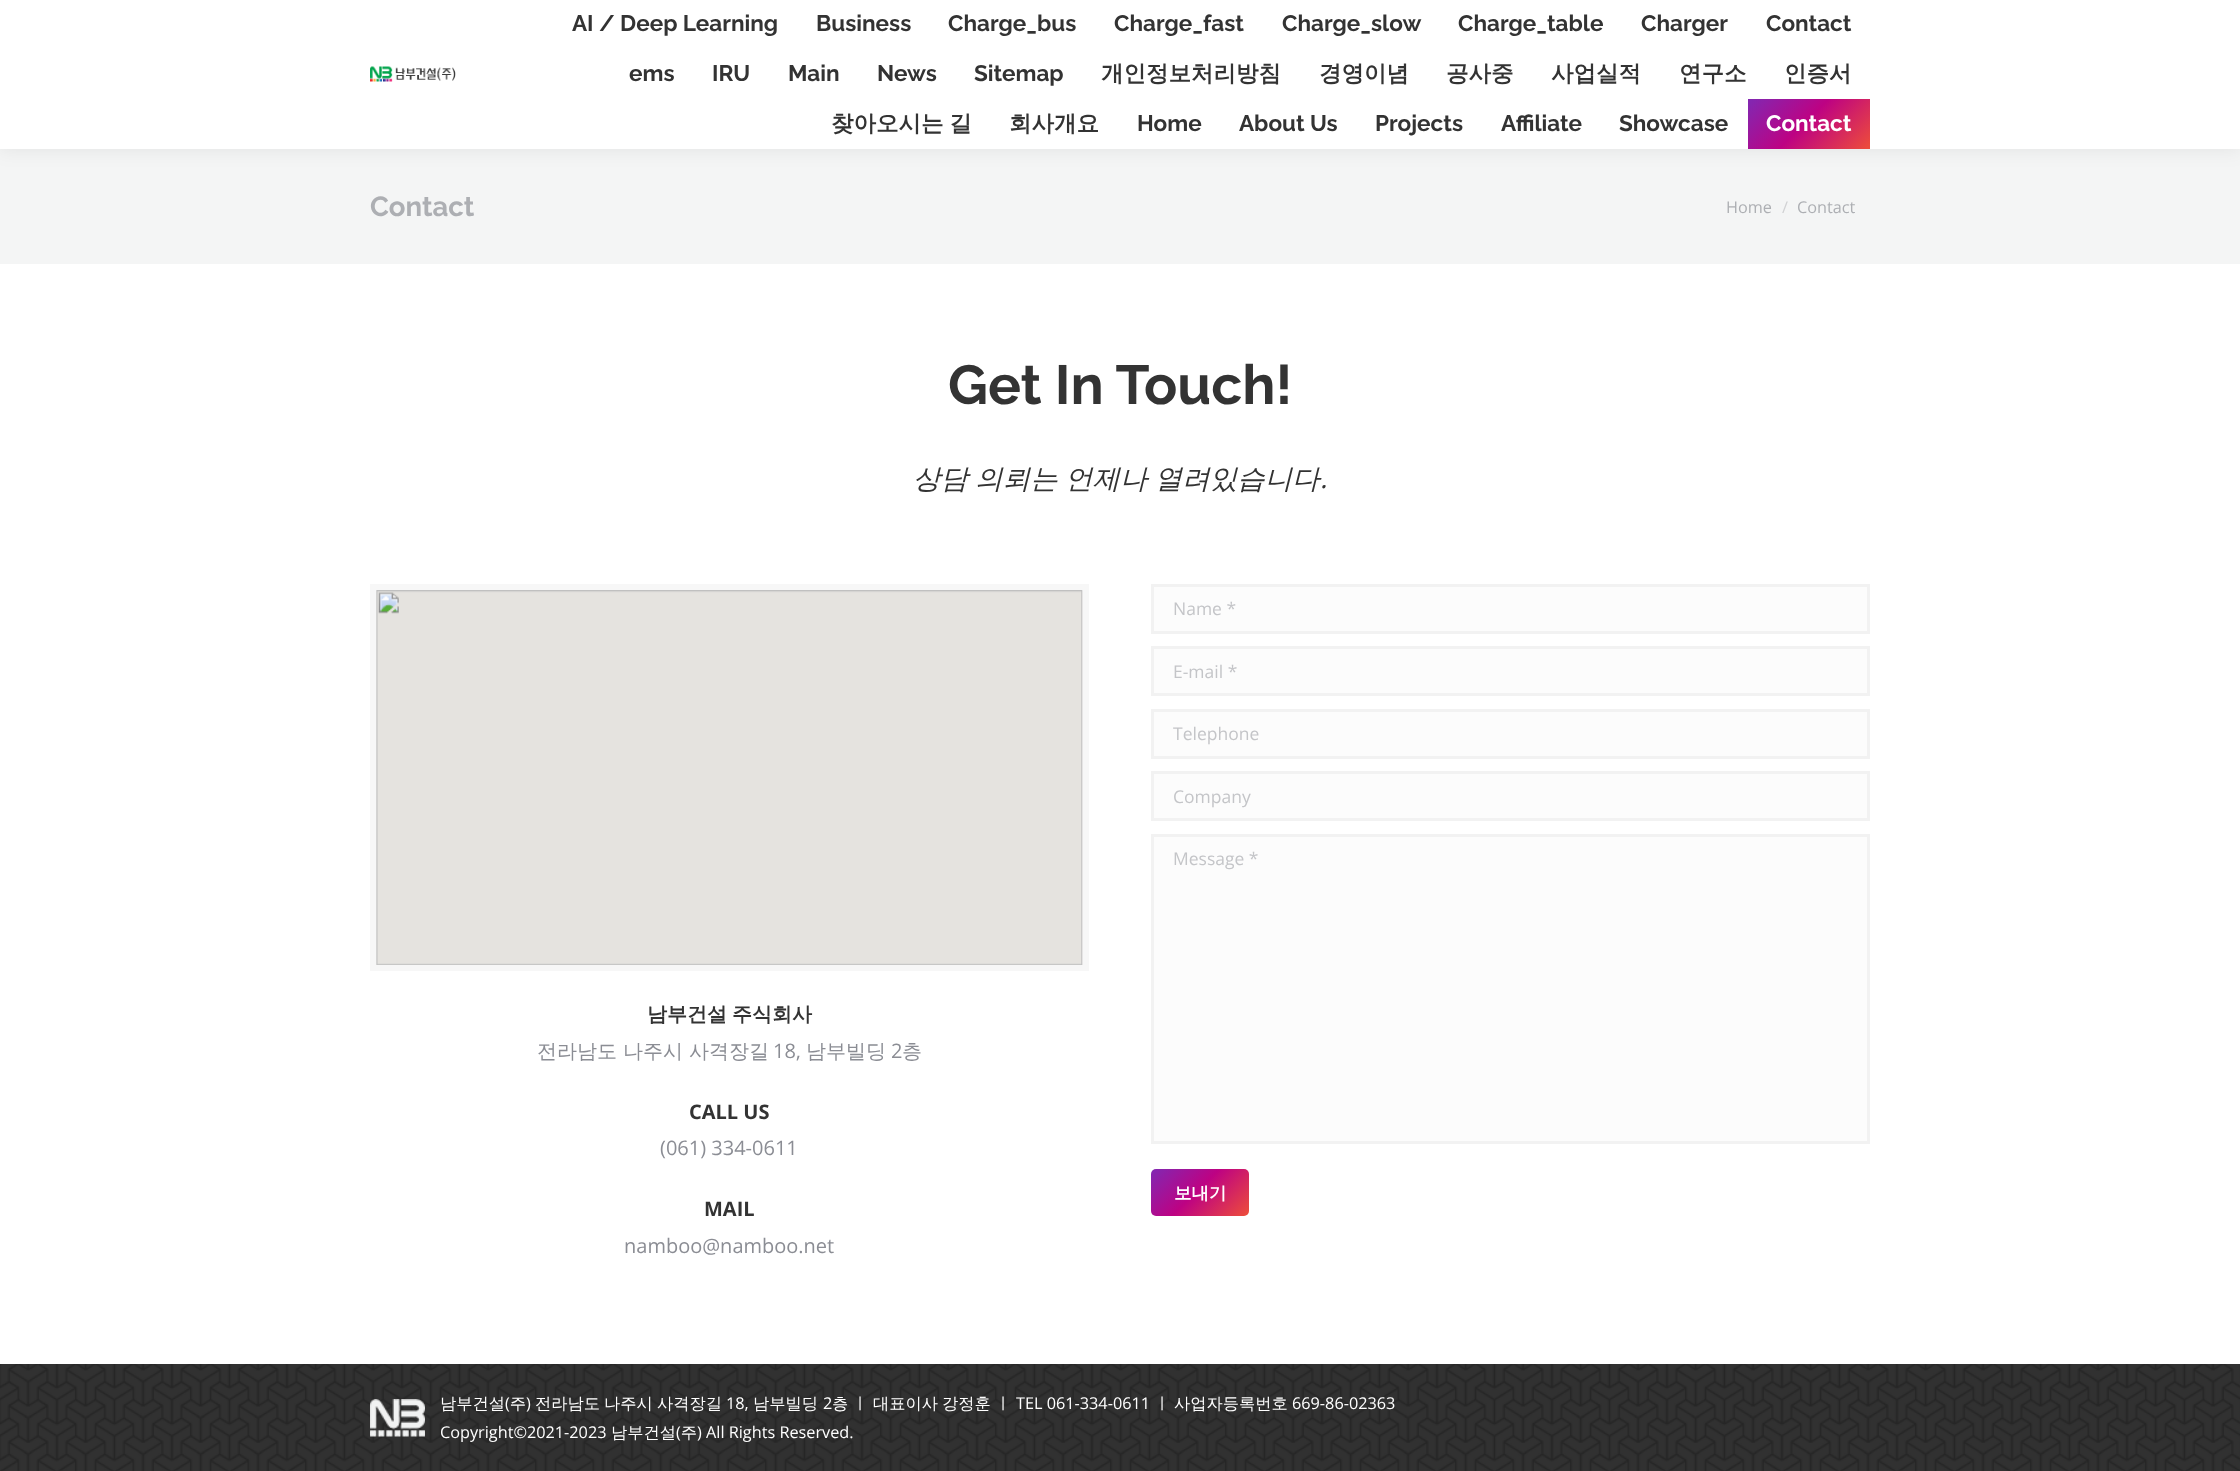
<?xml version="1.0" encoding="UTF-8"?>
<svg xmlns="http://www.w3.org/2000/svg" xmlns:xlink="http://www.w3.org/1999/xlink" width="2240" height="1471">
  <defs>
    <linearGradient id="g1" gradientUnits="userSpaceOnUse" x1="1766" y1="81" x2="1852" y2="167"><stop offset="0.03" stop-color="#8426b0" /><stop offset="0.47" stop-color="#bd0283" /><stop offset="0.98" stop-color="#ec4b3c" /></linearGradient>
    <linearGradient id="g2" gradientUnits="userSpaceOnUse" x1="1164" y1="1156" x2="1236" y2="1229"><stop offset="0.03" stop-color="#8426b0" /><stop offset="0.47" stop-color="#bd0283" /><stop offset="0.98" stop-color="#ec4b3c" /></linearGradient>
  </defs>
  <rect width="100%" height="100%" fill="#ffffff" />
  <rect y="149" width="2240" height="115" fill="#f4f5f5" />
  <rect x="-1" y="-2" width="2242" height="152" fill="#000000" fill-opacity="0.07" filter="blur(9.5px)" />
  <rect width="2240" height="149" fill="#ffffff" />
  <image x="370" y="66" width="86" height="16" xlink:href="image1.png" />
  <rect x="1748" y="99" width="122" height="50" fill="url(#g1)" />
  <rect x="370" y="584" width="719" height="387" fill="#f7f7f7" />
  <image x="376" y="590" width="707" height="375" xlink:href="image2.png" />
  <rect x="1152.5" y="585.5" width="716" height="47" fill="#fcfcfc" stroke="#f2f2f2" stroke-width="3" />
  <rect x="1152.5" y="647.5" width="716" height="47" fill="#fcfcfc" stroke="#f2f2f2" stroke-width="3" />
  <rect x="1152.5" y="710.5" width="716" height="47" fill="#fcfcfc" stroke="#f2f2f2" stroke-width="3" />
  <rect x="1152.5" y="772.5" width="716" height="47" fill="#fcfcfc" stroke="#f2f2f2" stroke-width="3" />
  <rect x="1152.5" y="835.5" width="716" height="307" fill="#fcfcfc" stroke="#f2f2f2" stroke-width="3" />
  <rect x="1151" y="1169" width="98" height="47" rx="5" fill="url(#g2)" />
  <image x="0" y="1364" width="2240" height="107" xlink:href="image3.png" />
  <image x="370" y="1399" width="55" height="38" xlink:href="image4.png" />
  <text x="572" y="31" style="font-family: Raleway; font-size: 22.5px; font-weight: bold; fill: #333333">AI / Deep Learning</text>
  <text x="816" y="31" style="font-family: Raleway; font-size: 22.5px; font-weight: bold; fill: #333333">Business</text>
  <text x="948" y="31" style="font-family: Raleway; font-size: 22.5px; font-weight: bold; fill: #333333">Charge_bus</text>
  <text x="1114" y="31" style="font-family: Raleway; font-size: 22.5px; font-weight: bold; fill: #333333">Charge_fast</text>
  <text x="1282" y="31" style="font-family: Raleway; font-size: 22.5px; font-weight: bold; fill: #333333">Charge_slow</text>
  <text x="1458" y="31" style="font-family: Raleway; font-size: 22.5px; font-weight: bold; fill: #333333">Charge_table</text>
  <text x="1641" y="31" style="font-family: Raleway; font-size: 22.5px; font-weight: bold; fill: #333333">Charger</text>
  <text x="1766" y="31" style="font-family: Raleway; font-size: 22.5px; font-weight: bold; fill: #333333">Contact</text>
  <text x="629" y="81" style="font-family: Raleway; font-size: 22.5px; font-weight: bold; fill: #333333">ems</text>
  <text x="712" y="81" style="font-family: Raleway; font-size: 22.5px; font-weight: bold; fill: #333333">IRU</text>
  <text x="788" y="81" style="font-family: Raleway; font-size: 22.5px; font-weight: bold; fill: #333333">Main</text>
  <text x="877" y="81" style="font-family: Raleway; font-size: 22.5px; font-weight: bold; fill: #333333">News</text>
  <text x="974" y="81" style="font-family: Raleway; font-size: 22.5px; font-weight: bold; fill: #333333">Sitemap</text>
  <text x="1101" y="81" style="font-family: WenQuanYi Zen Hei; font-size: 22.5px; font-weight: bold; fill: #333333">개인정보처리방침</text>
  <text x="1319" y="81" style="font-family: WenQuanYi Zen Hei; font-size: 22.5px; font-weight: bold; fill: #333333">경영이념</text>
  <text x="1446" y="81" style="font-family: WenQuanYi Zen Hei; font-size: 22.5px; font-weight: bold; fill: #333333">공사중</text>
  <text x="1551" y="81" style="font-family: WenQuanYi Zen Hei; font-size: 22.5px; font-weight: bold; fill: #333333">사업실적</text>
  <text x="1679" y="81" style="font-family: WenQuanYi Zen Hei; font-size: 22.5px; font-weight: bold; fill: #333333">연구소</text>
  <text x="1784" y="81" style="font-family: WenQuanYi Zen Hei; font-size: 22.5px; font-weight: bold; fill: #333333">인증서</text>
  <text x="831" y="131" word-spacing="-1" style="font-family: WenQuanYi Zen Hei; font-size: 22.5px; font-weight: bold; fill: #333333">찾아오시는 길</text>
  <text x="1009" y="131" style="font-family: WenQuanYi Zen Hei; font-size: 22.5px; font-weight: bold; fill: #333333">회사개요</text>
  <text x="1137" y="131" style="font-family: Raleway; font-size: 22.5px; font-weight: bold; fill: #333333">Home</text>
  <text x="1239" y="131" style="font-family: Raleway; font-size: 22.5px; font-weight: bold; fill: #333333">About Us</text>
  <text x="1375" y="131" style="font-family: Raleway; font-size: 22.5px; font-weight: bold; fill: #333333">Projects</text>
  <text x="1501" y="131" style="font-family: Raleway; font-size: 22.5px; font-weight: bold; fill: #333333">Affiliate</text>
  <text x="1619" y="131" style="font-family: Raleway; font-size: 22.5px; font-weight: bold; fill: #333333">Showcase</text>
  <text x="1766" y="131" style="font-family: Raleway; font-size: 22.5px; font-weight: bold; fill: #ffffff">Contact</text>
  <text x="370" y="216" style="font-family: Raleway; font-size: 27.5px; font-weight: bold; fill: #adafb3">Contact</text>
  <text x="1726" y="213" style="font-family: Open Sans; font-size: 16.25px; fill: #adafb3">Home</text>
  <text x="1782" y="213" style="font-family: Open Sans; font-size: 16.25px; fill: #d1d2d4">/</text>
  <text x="1797" y="213" style="font-family: Open Sans; font-size: 16.25px; fill: #adafb3">Contact</text>
  <text x="948" y="404" style="font-family: Raleway; font-size: 55px; font-weight: bold; fill: #333333">Get In Touch!</text>
  <text x="913" y="488" word-spacing="-1" style="font-family: WenQuanYi Zen Hei; font-size: 27.5px; font-weight: 500; font-style: italic; fill: #333333">상담 의뢰는 언제나 열려있습니다</text>
  <text x="1320" y="488" style="font-family: Open Sans; font-size: 27.5px; font-style: italic; fill: #333333">.</text>
  <text x="647" y="1021" word-spacing="-1" style="font-family: WenQuanYi Zen Hei; font-size: 20px; font-weight: bold; fill: #333333">남부건설 주식회사</text>
  <text x="537" y="1058" style="font-family: WenQuanYi Zen Hei; font-size: 20px; font-weight: 500; fill: #8b8d94">전라남도 나주시 사격장길</text>
  <text x="773" y="1058" style="font-family: Open Sans; font-size: 20px; fill: #8b8d94">18,</text>
  <text x="806" y="1058" style="font-family: WenQuanYi Zen Hei; font-size: 20px; font-weight: 500; fill: #8b8d94">남부빌딩</text>
  <text x="891" y="1058" style="font-family: Open Sans; font-size: 20px; fill: #8b8d94">2</text>
  <text x="902" y="1058" style="font-family: WenQuanYi Zen Hei; font-size: 20px; font-weight: 500; fill: #8b8d94">층</text>
  <text x="689" y="1119" style="font-family: Open Sans; font-size: 20px; font-weight: bold; fill: #333333">CALL US</text>
  <text x="660" y="1155" style="font-family: Open Sans; font-size: 20px; fill: #8b8d94">(061) 334-0611</text>
  <text x="704" y="1216" style="font-family: Open Sans; font-size: 20px; font-weight: bold; fill: #333333">MAIL</text>
  <text x="624" y="1253" style="font-family: Open Sans; font-size: 20px; fill: #8b8d94">namboo@namboo.net</text>
  <text x="1173" y="615" style="font-family: Open Sans; font-size: 17.5px; fill: #c4c5c8">Name *</text>
  <text x="1173" y="678" style="font-family: Open Sans; font-size: 17.5px; fill: #c4c5c8">E-mail *</text>
  <text x="1173" y="740" style="font-family: Open Sans; font-size: 17.5px; fill: #c4c5c8">Telephone</text>
  <text x="1173" y="803" style="font-family: Open Sans; font-size: 17.5px; fill: #c4c5c8">Company</text>
  <text x="1173" y="865" style="font-family: Open Sans; font-size: 17.5px; fill: #c4c5c8">Message *</text>
  <text x="1174" y="1199" style="font-family: WenQuanYi Zen Hei; font-size: 17.5px; font-weight: bold; fill: #ffffff">보내기</text>
  <text x="440" y="1409" style="font-family: WenQuanYi Zen Hei; font-size: 16.25px; font-weight: 500; fill: #ffffff">남부건설 주</text>
  <text x="535" y="1409" style="font-family: WenQuanYi Zen Hei; font-size: 16.25px; font-weight: 500; fill: #ffffff">전라남도</text>
  <text x="604" y="1409" style="font-family: WenQuanYi Zen Hei; font-size: 16.25px; font-weight: 500; fill: #ffffff">나주시</text>
  <text x="657" y="1409" style="font-family: WenQuanYi Zen Hei; font-size: 16.25px; font-weight: 500; fill: #ffffff">사격장길</text>
  <text x="753" y="1409" style="font-family: WenQuanYi Zen Hei; font-size: 16.25px; font-weight: 500; fill: #ffffff">남부빌딩</text>
  <text x="832" y="1409" style="font-family: WenQuanYi Zen Hei; font-size: 16.25px; font-weight: 500; fill: #ffffff">층</text>
  <text x="852" y="1409" style="font-family: WenQuanYi Zen Hei; font-size: 16.25px; font-weight: 500; fill: #ffffff">ㅣ</text>
  <text x="873" y="1409" style="font-family: WenQuanYi Zen Hei; font-size: 16.25px; font-weight: 500; fill: #ffffff">대표이사</text>
  <text x="942" y="1409" style="font-family: WenQuanYi Zen Hei; font-size: 16.25px; font-weight: 500; fill: #ffffff">강정훈</text>
  <text x="995" y="1409" style="font-family: WenQuanYi Zen Hei; font-size: 16.25px; font-weight: 500; fill: #ffffff">ㅣ</text>
  <text x="1154" y="1409" style="font-family: WenQuanYi Zen Hei; font-size: 16.25px; font-weight: 500; fill: #ffffff">ㅣ</text>
  <text x="1174" y="1409" style="font-family: WenQuanYi Zen Hei; font-size: 16.25px; font-weight: 500; fill: #ffffff">사업자등록번호</text>
  <text x="505" y="1409" style="font-family: Open Sans; font-size: 16.25px; fill: #ffffff">(</text>
  <text x="526" y="1409" style="font-family: Open Sans; font-size: 16.25px; fill: #ffffff">)</text>
  <text x="726" y="1409" style="font-family: Open Sans; font-size: 16.25px; fill: #ffffff">18,</text>
  <text x="823" y="1409" style="font-family: Open Sans; font-size: 16.25px; fill: #ffffff">2</text>
  <text x="1016" y="1409" style="font-family: Open Sans; font-size: 16.25px; fill: #ffffff">TEL 061-334-0611</text>
  <text x="1292" y="1409" style="font-family: Open Sans; font-size: 16.25px; fill: #ffffff">669-86-02363</text>
  <text x="440" y="1438" style="font-family: Open Sans; font-size: 16.25px; fill: #ffffff">Copyright©2021-2023</text>
  <text x="611" y="1438" style="font-family: WenQuanYi Zen Hei; font-size: 16.25px; font-weight: 500; fill: #ffffff">남부건설 주</text>
  <text x="697" y="1438" style="font-family: Open Sans; font-size: 16.25px; fill: #ffffff">) All Rights Reserved.</text>
  <text x="676" y="1438" style="font-family: Open Sans; font-size: 16.25px; fill: #ffffff">(</text>
</svg>
